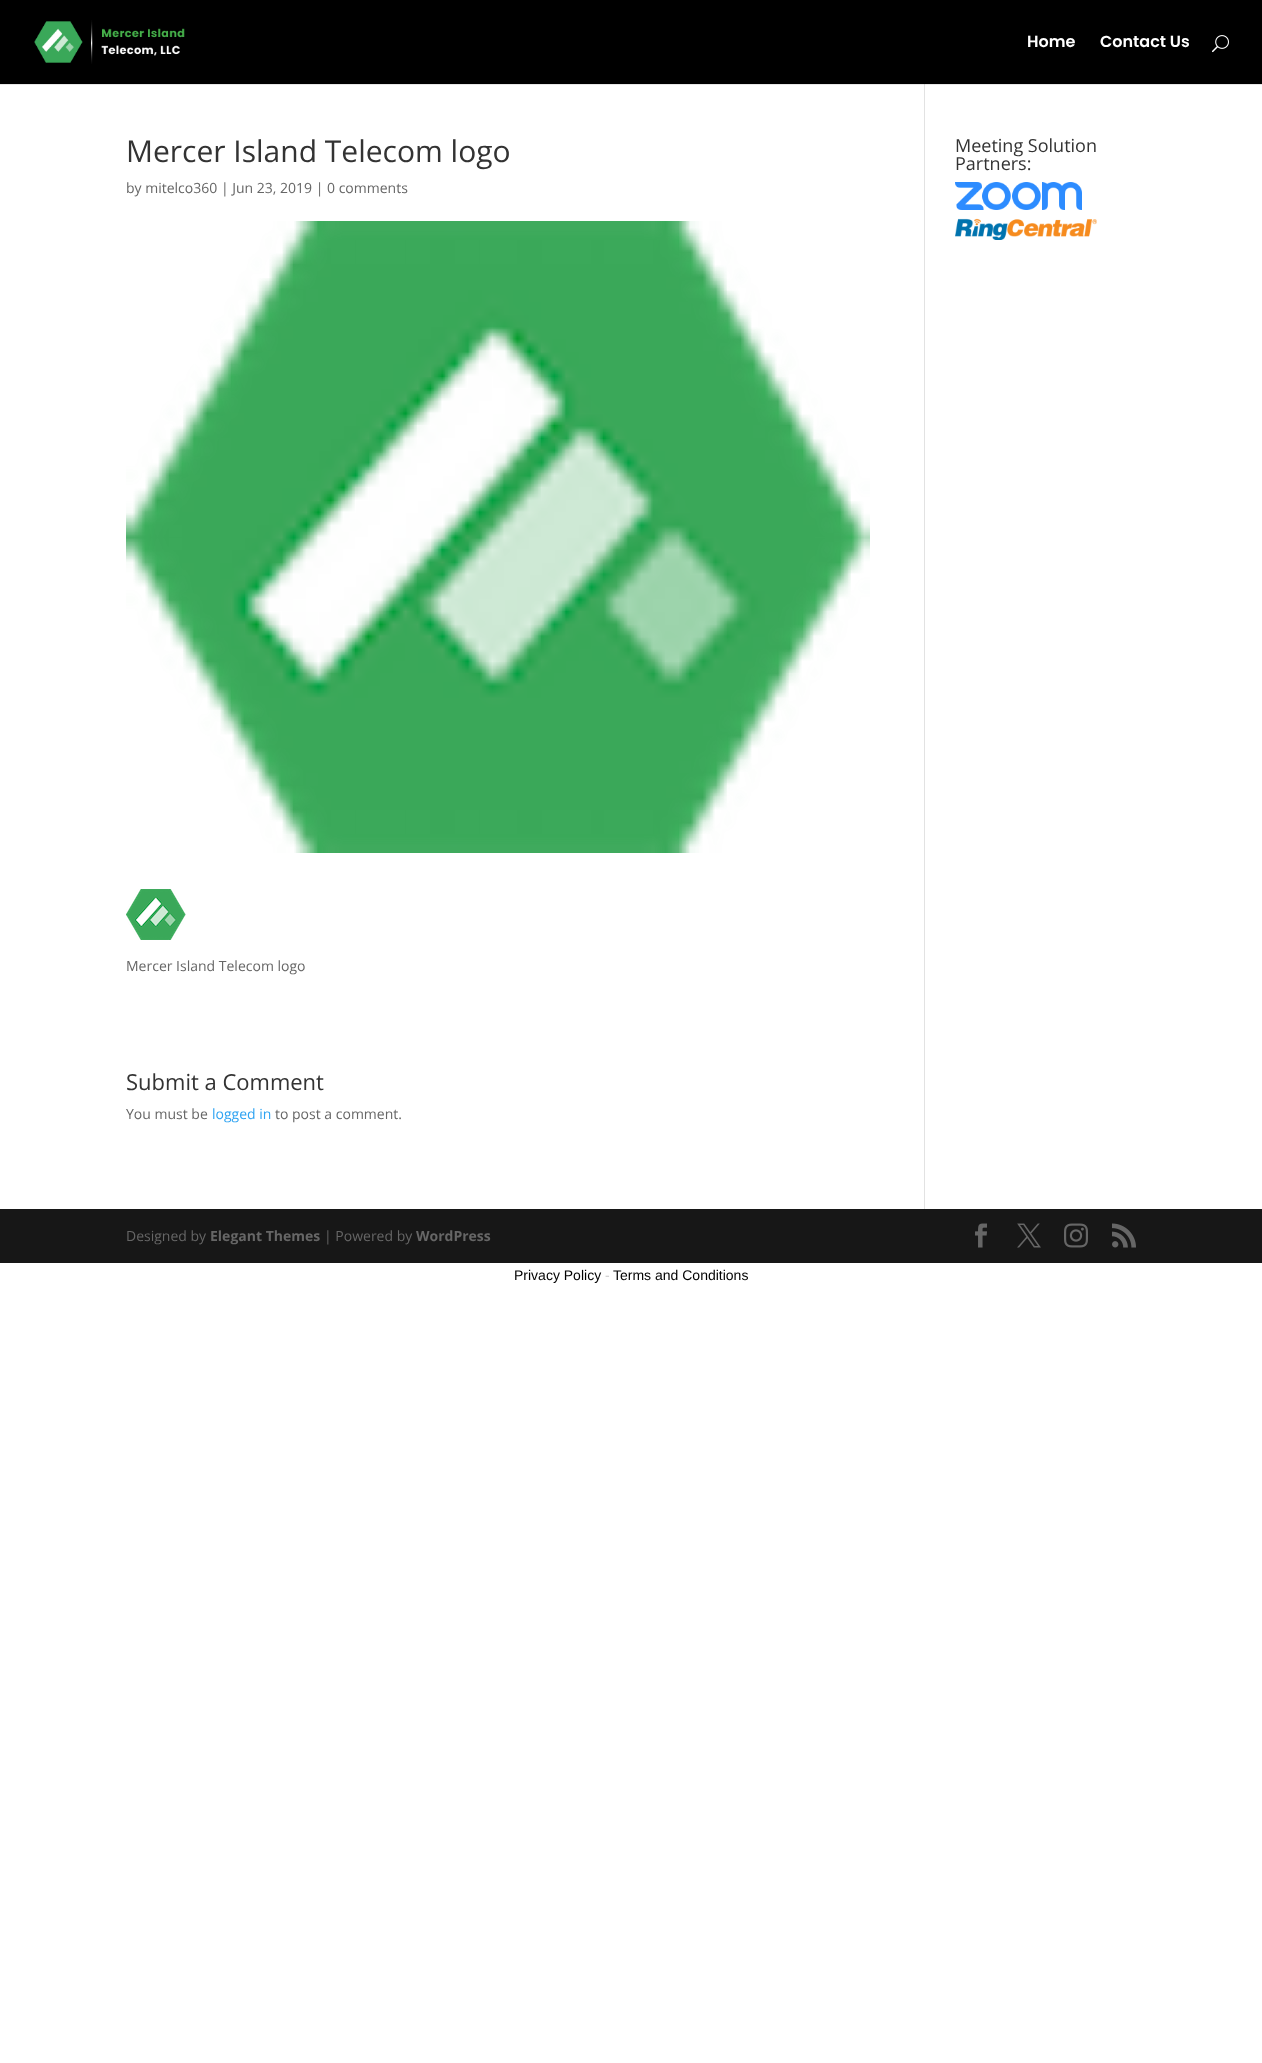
<?xml version="1.0" encoding="UTF-8"?>
<svg xmlns="http://www.w3.org/2000/svg" xmlns:xlink="http://www.w3.org/1999/xlink" width="1262" height="2063">
  <rect width="100%" height="100%" fill="#ffffff" />
  <rect y="84" width="1262" height="1" fill="#e6e6e6" />
  <rect x="924" y="78" width="1" height="1131" fill="#e2e2e2" />
  <rect width="1262" height="84" fill="#000000" />
  <image x="34" y="20" width="151" height="44" xlink:href="image1.png" />
  <image x="1212" y="35" width="17" height="18" xlink:href="image2.png" />
  <rect x="924" y="84" width="1" height="1" fill="#cbcbcb" />
  <image x="126" y="221" width="744" height="632" xlink:href="image3.png" />
  <image x="126" y="889" width="60" height="51" xlink:href="image4.png" />
  <image x="955" y="182" width="127" height="28" xlink:href="image5.png" />
  <image x="955" y="218" width="142" height="22" xlink:href="image6.png" />
  <rect y="1209" width="1262" height="54" fill="#171717" />
  <image x="975" y="1223" width="12" height="25" xlink:href="image7.png" />
  <image x="1017" y="1223" width="24" height="25" xlink:href="image8.png" />
  <image x="1064" y="1223" width="24" height="25" xlink:href="image9.png" />
  <image x="1112" y="1223" width="24" height="25" xlink:href="image10.png" />
  <text x="1027" y="47" style="font-family: Poppins; font-size: 16px; font-weight: 600; fill: #ffffff">Home</text>
  <text x="1100" y="47" style="font-family: Poppins; font-size: 16px; font-weight: 600; fill: #ffffff">Contact Us</text>
  <text x="126" y="162" style="font-family: Open Sans; font-size: 30px; fill: #333333">Mercer Island Telecom logo</text>
  <text x="126" y="193" style="font-family: Open Sans; font-size: 14px; fill: #666666">by mitelco360 | Jun 23, 2019 | 0 comments</text>
  <text x="126" y="971" style="font-family: Open Sans; font-size: 14px; fill: #666666">Mercer Island Telecom logo</text>
  <text x="126" y="1090" style="font-family: Open Sans; font-size: 22px; fill: #333333">Submit a Comment</text>
  <text x="126" y="1119" style="font-family: Open Sans; font-size: 14px; fill: #666666">You must be</text>
  <text x="212" y="1119" style="font-family: Open Sans; font-size: 14px; fill: #2ea3f2">logged in</text>
  <text x="275" y="1119" style="font-family: Open Sans; font-size: 14px; fill: #666666">to post a comment.</text>
  <text x="955" y="152" style="font-family: Open Sans; font-size: 18px; fill: #333333">Meeting Solution</text>
  <text x="955" y="170" style="font-family: Open Sans; font-size: 18px; fill: #333333">Partners:</text>
  <text x="126" y="1241" style="font-family: Open Sans; font-size: 14px; fill: #666666">Designed by</text>
  <text x="210" y="1241" style="font-family: Open Sans; font-size: 14px; font-weight: bold; fill: #666666">Elegant Themes</text>
  <text x="324" y="1241" style="font-family: Open Sans; font-size: 14px; fill: #666666">| Powered by</text>
  <text x="416" y="1241" style="font-family: Open Sans; font-size: 14px; font-weight: bold; fill: #666666">WordPress</text>
  <text x="514" y="1280" style="font-family: Liberation Sans; font-size: 14px; fill: #000000">Privacy Policy</text>
  <text x="605" y="1280" style="font-family: Liberation Sans; font-size: 14px; fill: #cccccc">-</text>
  <text x="613" y="1280" style="font-family: Liberation Sans; font-size: 14px; fill: #000000">Terms and Conditions</text>
</svg>
